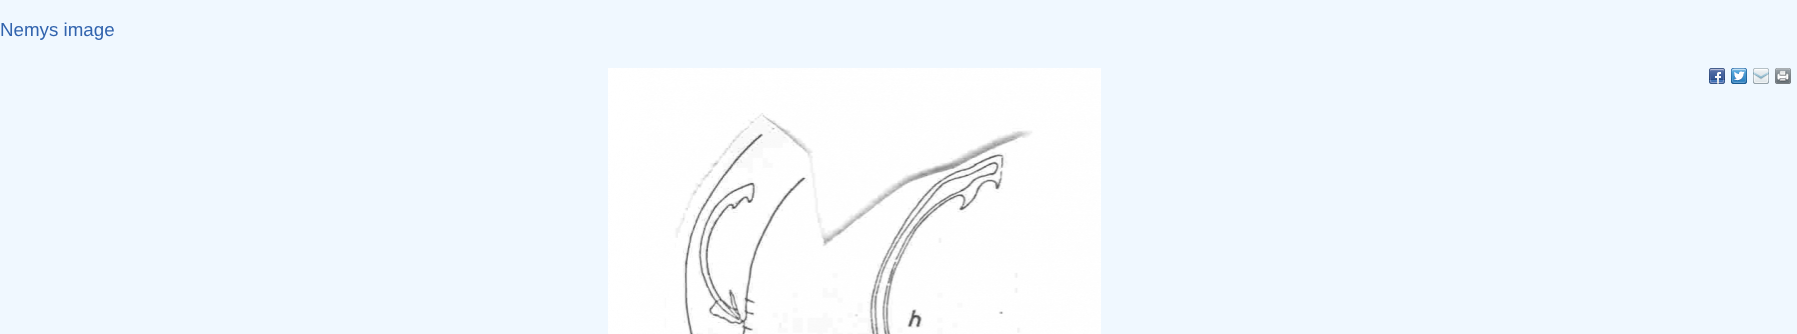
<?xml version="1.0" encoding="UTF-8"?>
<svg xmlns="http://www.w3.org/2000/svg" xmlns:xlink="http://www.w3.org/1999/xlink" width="1797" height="334">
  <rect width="100%" height="100%" fill="#f0f8ff" />
  <image x="608" y="68" width="493" height="266" xlink:href="image1.png" />
  <image x="1709" y="68" width="16" height="16" xlink:href="image2.png" />
  <image x="1731" y="68" width="16" height="16" xlink:href="image3.png" />
  <image x="1753" y="68" width="16" height="16" xlink:href="image4.png" />
  <image x="1775" y="68" width="16" height="16" xlink:href="image5.png" />
  <text x="0" y="36" style="font-family: Liberation Sans; font-size: 18.75px; fill: #3264ae">Nemys image</text>
</svg>
